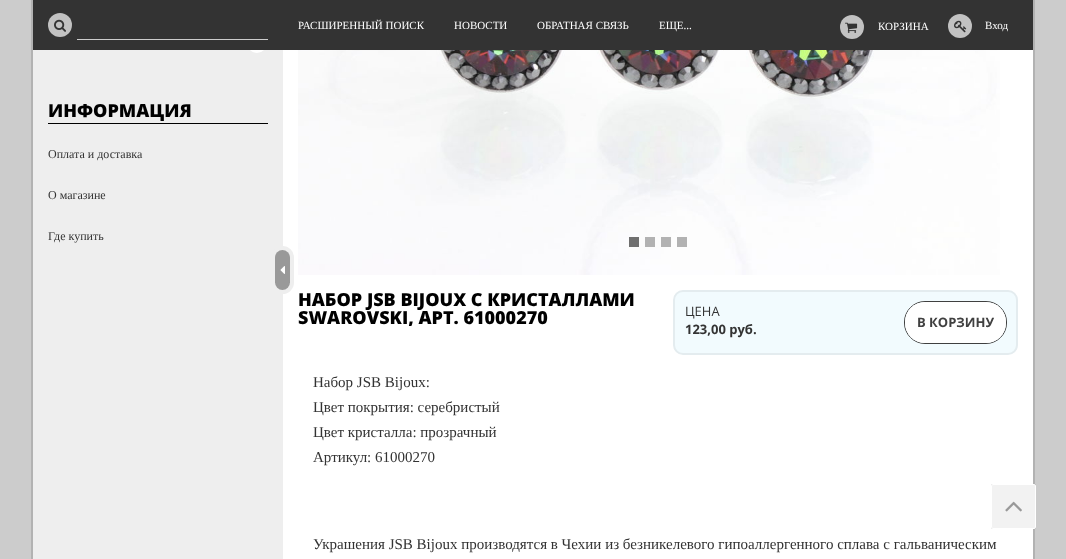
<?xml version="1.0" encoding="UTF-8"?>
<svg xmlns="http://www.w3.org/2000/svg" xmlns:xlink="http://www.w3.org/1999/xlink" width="1066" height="559">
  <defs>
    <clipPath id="clip1"><rect x="298" y="290" width="345" height="36" /></clipPath>
  </defs>
  <rect width="100%" height="100%" fill="#cccccc" />
  <rect x="33" y="50" width="250" height="509" fill="#eeeeee" />
  <circle cx="257" cy="43" r="10" fill="#ffffff" />
  <rect x="33" width="1000" height="50" fill="#333333" />
  <circle cx="60" cy="25" r="12" fill="#c2c2c2" />
  <image x="54" y="19" width="12" height="13" xlink:href="image1.png" />
  <rect x="77" y="39" width="191" height="1" fill="#cccccc" />
  <circle cx="852" cy="27" r="12" fill="#c2c2c2" />
  <image x="845" y="22" width="13" height="11" xlink:href="image2.png" />
  <circle cx="960" cy="26" r="12" fill="#c2c2c2" />
  <image x="954" y="20" width="13" height="13" xlink:href="image3.png" />
  <rect x="1033" width="2" height="559" fill="#b2b2b2" />
  <rect x="31" width="2" height="559" fill="#b2b2b2" />
  <rect x="283" y="50" width="750" height="509" fill="#ffffff" />
  <rect x="48" y="123" width="220" height="1" fill="#000000" />
  <rect x="273" y="248" width="19" height="44" rx="9.5" fill="none" stroke="#eeeeee" stroke-width="4" />
  <rect x="275" y="250" width="15" height="40" rx="7.5" fill="#999999" />
  <image x="280" y="266" width="5" height="8" xlink:href="image4.png" />
  <image x="298" y="50" width="702" height="225" xlink:href="image5.png" />
  <rect x="629" y="237" width="10" height="10" fill="#6f6f6f" />
  <rect x="645" y="237" width="10" height="10" fill="#b2b2b2" />
  <rect x="661" y="237" width="10" height="10" fill="#b2b2b2" />
  <rect x="677" y="237" width="10" height="10" fill="#b2b2b2" />
  <rect x="674" y="291" width="343" height="63" rx="9" fill="#f2fbfe" stroke="#e4ecef" stroke-width="2" />
  <rect x="904.5" y="301.5" width="102" height="42" rx="20.5" fill="none" stroke="#404040" />
  <rect x="905" y="302" width="101" height="41" rx="20" fill="#ffffff" />
  <rect x="991" y="484" width="45" height="45" rx="2" fill="#000000" fill-opacity="0.2" filter="blur(0.5px)" />
  <rect x="991.5" y="484.5" width="44" height="44" rx="1.5" fill="#f2f2f2" stroke="#ffffff" />
  <image x="1005" y="501" width="17" height="11" xlink:href="image6.png" />
  <text x="298" y="29" style="font-family: Liberation Serif; font-size: 11px; fill: #ffffff">РАСШИРЕННЫЙ ПОИСК</text>
  <text x="454" y="29" style="font-family: Liberation Serif; font-size: 11px; fill: #ffffff">НОВОСТИ</text>
  <text x="537" y="29" style="font-family: Liberation Serif; font-size: 11px; fill: #ffffff">ОБРАТНАЯ СВЯЗЬ</text>
  <text x="659" y="29" style="font-family: Liberation Serif; font-size: 11px; fill: #ffffff">ЕЩЕ...</text>
  <text x="878" y="30" style="font-family: Liberation Serif; font-size: 11px; fill: #ffffff">КОРЗИНА</text>
  <text x="985" y="29" style="font-family: Liberation Serif; font-size: 11px; fill: #ffffff">Вход</text>
  <text x="48" y="117" style="font-family: Open Sans; font-size: 18px; font-weight: 800; fill: #000000">ИНФОРМАЦИЯ</text>
  <text x="48" y="158" style="font-family: Liberation Serif; font-size: 12px; fill: #333333">Оплата и доставка</text>
  <text x="48" y="199" style="font-family: Liberation Serif; font-size: 12px; fill: #333333">О магазине</text>
  <text x="48" y="240" style="font-family: Liberation Serif; font-size: 12px; fill: #333333">Где купить</text>
  <text x="298" y="306" style="font-family: Open Sans; font-size: 18px; font-weight: 800; fill: #000000">НАБОР JSB BIJOUX С КРИСТАЛЛАМИ</text>
  <g clip-path="url(#clip1)">
    <text x="298" y="324" style="font-family: Open Sans; font-size: 18px; font-weight: 800; fill: #000000">SWAROVSKI, АРТ. 61000270</text>
  </g>
  <text x="685" y="316" style="font-family: Open Sans; font-size: 13px; fill: #333333">ЦЕНА</text>
  <text x="685" y="334" style="font-family: Open Sans; font-size: 13px; font-weight: bold; fill: #333333">123,00 руб.</text>
  <text x="917" y="327" style="font-family: Open Sans; font-size: 13px; font-weight: bold; fill: #404040">В КОРЗИНУ</text>
  <text x="313" y="387" style="font-family: Liberation Serif; font-size: 15px; fill: #333333">Набор JSB Bijoux:</text>
  <text x="313" y="412" style="font-family: Liberation Serif; font-size: 15px; fill: #333333">Цвет покрытия: серебристый</text>
  <text x="313" y="437" style="font-family: Liberation Serif; font-size: 15px; fill: #333333">Цвет кристалла: прозрачный</text>
  <text x="313" y="462" style="font-family: Liberation Serif; font-size: 15px; fill: #333333">Артикул: 61000270</text>
  <text x="313" y="549" style="font-family: Liberation Serif; font-size: 15px; fill: #333333">Украшения JSB Bijoux производятся в Чехии из безникелевого гипоаллергенного сплава с гальваническим</text>
</svg>
